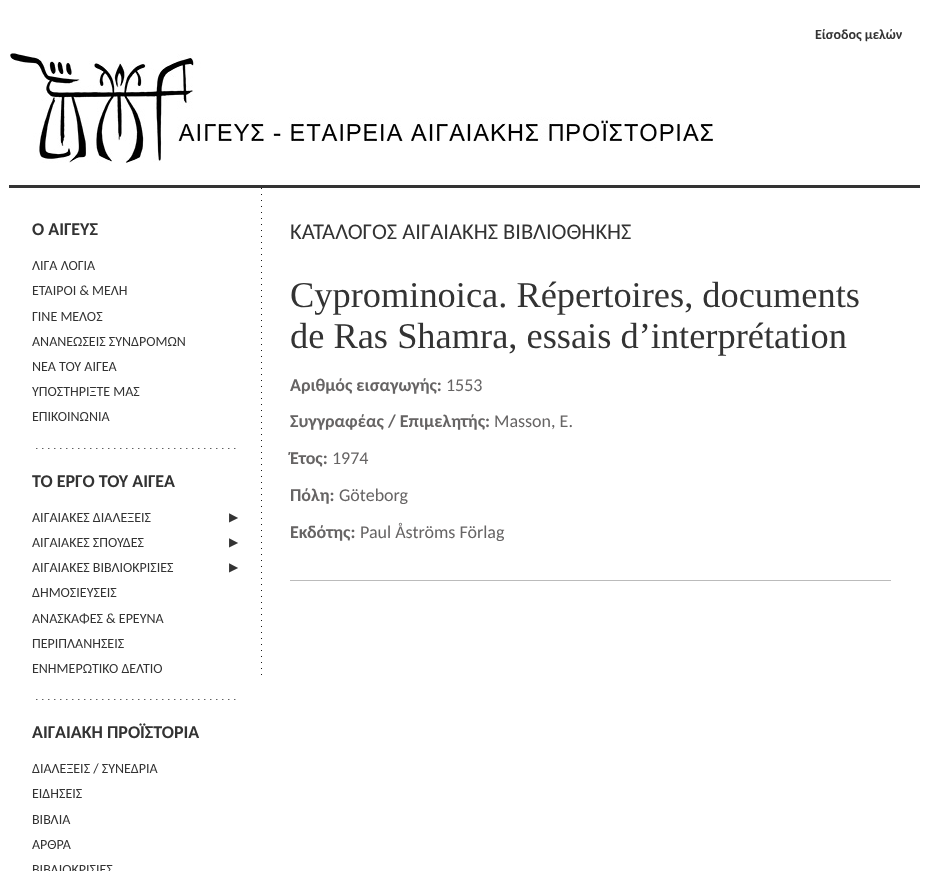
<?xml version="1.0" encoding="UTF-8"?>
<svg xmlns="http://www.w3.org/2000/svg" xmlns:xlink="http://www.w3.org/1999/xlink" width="929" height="871">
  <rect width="100%" height="100%" fill="#ffffff" />
  <rect x="9" y="185" width="911" height="3" fill="#333333" />
  <image x="10" y="53" width="703" height="110" xlink:href="image1.png" />
  <image x="36" y="448" width="200" height="1" xlink:href="image2.png" />
  <image x="36" y="699" width="200" height="1" xlink:href="image2.png" />
  <image x="261" y="188" width="1" height="487" xlink:href="image3.png" />
  <rect x="290" y="580" width="601" height="1" fill="#bbbbbb" />
  <text x="815" y="39" style="font-family: Carlito; font-size: 14px; font-weight: bold; fill: #333333">Είσοδος μελών</text>
  <text x="32" y="235" style="font-family: Carlito; font-size: 18px; font-weight: bold; fill: #333333">Ο ΑΙΓΕΥΣ</text>
  <text x="32" y="270" style="font-family: Carlito; font-size: 14px; fill: #333333">ΛΙΓΑ ΛΟΓΙΑ</text>
  <text x="32" y="295" style="font-family: Carlito; font-size: 14px; fill: #333333">ΕΤΑΙΡΟΙ &amp; ΜΕΛΗ</text>
  <text x="32" y="321" style="font-family: Carlito; font-size: 14px; fill: #333333">ΓΙΝΕ ΜΕΛΟΣ</text>
  <text x="32" y="346" style="font-family: Carlito; font-size: 14px; fill: #333333">ΑΝΑΝΕΩΣΕΙΣ ΣΥΝΔΡΟΜΩΝ</text>
  <text x="32" y="371" style="font-family: Carlito; font-size: 14px; fill: #333333">ΝΕΑ ΤΟΥ ΑΙΓΕΑ</text>
  <text x="32" y="396" style="font-family: Carlito; font-size: 14px; fill: #333333">ΥΠΟΣΤΗΡΙΞΤΕ ΜΑΣ</text>
  <text x="32" y="421" style="font-family: Carlito; font-size: 14px; fill: #333333">ΕΠΙΚΟΙΝΩΝΙΑ</text>
  <text x="32" y="487" style="font-family: Carlito; font-size: 18px; font-weight: bold; fill: #333333">ΤΟ ΕΡΓΟ ΤΟΥ ΑΙΓΕΑ</text>
  <text x="32" y="522" style="font-family: Carlito; font-size: 14px; fill: #333333">ΑΙΓΑΙΑΚΕΣ ΔΙΑΛΕΞΕΙΣ</text>
  <text x="229" y="521" style="font-family: DejaVu Sans; font-size: 12px; fill: #333333">▶</text>
  <text x="32" y="547" style="font-family: Carlito; font-size: 14px; fill: #333333">ΑΙΓΑΙΑΚΕΣ ΣΠΟΥΔΕΣ</text>
  <text x="229" y="546" style="font-family: DejaVu Sans; font-size: 12px; fill: #333333">▶</text>
  <text x="32" y="572" style="font-family: Carlito; font-size: 14px; fill: #333333">ΑΙΓΑΙΑΚΕΣ ΒΙΒΛΙΟΚΡΙΣΙΕΣ</text>
  <text x="229" y="571" style="font-family: DejaVu Sans; font-size: 12px; fill: #333333">▶</text>
  <text x="32" y="597" style="font-family: Carlito; font-size: 14px; fill: #333333">ΔΗΜΟΣΙΕΥΣΕΙΣ</text>
  <text x="32" y="623" style="font-family: Carlito; font-size: 14px; fill: #333333">ΑΝΑΣΚΑΦΕΣ &amp; ΕΡΕΥΝΑ</text>
  <text x="32" y="648" style="font-family: Carlito; font-size: 14px; fill: #333333">ΠΕΡΙΠΛΑΝΗΣΕΙΣ</text>
  <text x="32" y="673" style="font-family: Carlito; font-size: 14px; fill: #333333">ΕΝΗΜΕΡΩΤΙΚΟ ΔΕΛΤΙΟ</text>
  <text x="32" y="738" style="font-family: Carlito; font-size: 18px; font-weight: bold; fill: #333333">ΑΙΓΑΙΑΚΗ ΠΡΟΪΣΤΟΡΙΑ</text>
  <text x="32" y="773" style="font-family: Carlito; font-size: 14px; fill: #333333">ΔΙΑΛΕΞΕΙΣ / ΣΥΝΕΔΡΙΑ</text>
  <text x="32" y="798" style="font-family: Carlito; font-size: 14px; fill: #333333">ΕΙΔΗΣΕΙΣ</text>
  <text x="32" y="824" style="font-family: Carlito; font-size: 14px; fill: #333333">ΒΙΒΛΙΑ</text>
  <text x="32" y="849" style="font-family: Carlito; font-size: 14px; fill: #333333">ΑΡΘΡΑ</text>
  <text x="32" y="874" style="font-family: Carlito; font-size: 14px; fill: #333333">ΒΙΒΛΙΟΚΡΙΣΙΕΣ</text>
  <text x="290" y="239" style="font-family: Carlito; font-size: 22.5px; fill: #333333">ΚΑΤΑΛΟΓΟΣ ΑΙΓΑΙΑΚΗΣ ΒΙΒΛΙΟΘΗΚΗΣ</text>
  <text x="290" y="307" style="font-family: Liberation Serif; font-size: 36.4px; fill: #333333">Cyprominoica. Répertoires, documents</text>
  <text x="290" y="348" style="font-family: Liberation Serif; font-size: 36.4px; fill: #333333">de Ras Shamra, essais d’interprétation</text>
  <text x="290" y="391" style="font-family: Carlito; font-size: 18px; font-weight: bold; fill: #666464">Αριθμός εισαγωγής:</text>
  <text x="446" y="391" style="font-family: Carlito; font-size: 18px; fill: #666464">1553</text>
  <text x="290" y="427" style="font-family: Carlito; font-size: 18px; font-weight: bold; fill: #666464">Συγγραφέας / Επιμελητής:</text>
  <text x="494" y="427" style="font-family: Carlito; font-size: 18px; fill: #666464">Masson, E.</text>
  <text x="290" y="464" style="font-family: Carlito; font-size: 18px; font-weight: bold; fill: #666464">Έτος:</text>
  <text x="332" y="464" style="font-family: Carlito; font-size: 18px; fill: #666464">1974</text>
  <text x="290" y="501" style="font-family: Carlito; font-size: 18px; font-weight: bold; fill: #666464">Πόλη:</text>
  <text x="339" y="501" style="font-family: Carlito; font-size: 18px; fill: #666464">Göteborg</text>
  <text x="290" y="538" style="font-family: Carlito; font-size: 18px; font-weight: bold; fill: #666464">Εκδότης:</text>
  <text x="360" y="538" style="font-family: Carlito; font-size: 18px; fill: #666464">Paul Åströms Förlag</text>
</svg>
